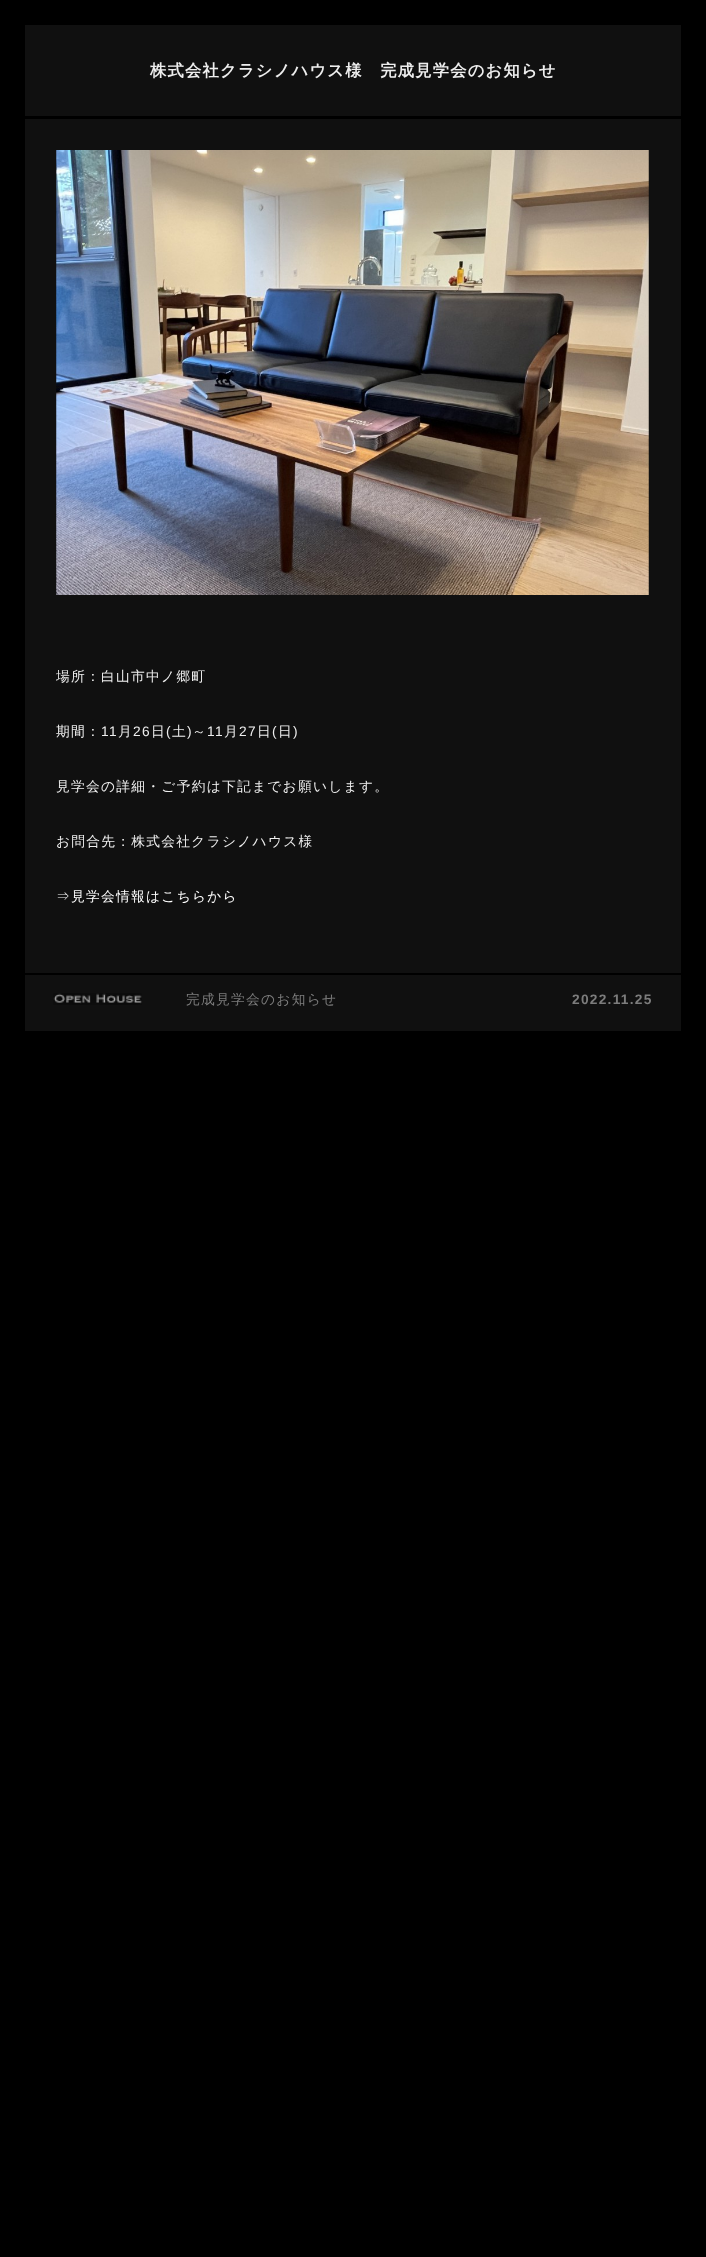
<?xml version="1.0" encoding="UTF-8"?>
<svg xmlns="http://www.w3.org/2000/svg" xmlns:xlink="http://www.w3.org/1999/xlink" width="706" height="2257">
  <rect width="100%" height="100%" fill="#000000" />
  <rect x="25" y="25" width="656" height="91" fill="#101010" />
  <rect x="25" y="119" width="656" height="854" fill="#101010" />
  <image x="56" y="150" width="593" height="445" xlink:href="image1.png" />
  <rect x="25" y="975" width="656" height="56" fill="#101010" />
  <image x="53" y="993" width="89" height="12" xlink:href="image2.png" />
  <text x="150" y="76" style="font-family: WenQuanYi Zen Hei; font-size: 16.25px; font-weight: bold; letter-spacing: 1.25px; fill: #eeeeee">株式会社クラシノハウス様　完成見学会のお知らせ</text>
  <text x="56" y="681" style="font-family: WenQuanYi Zen Hei; font-size: 13.75px; font-weight: 500; letter-spacing: 1.25px; fill: #eeeeee">場所：白山市中ノ郷町</text>
  <text x="56" y="736" style="font-family: WenQuanYi Zen Hei; font-size: 13.75px; font-weight: 500; letter-spacing: 1.25px; fill: #eeeeee">期間：</text>
  <text x="101" y="736" style="font-family: Liberation Sans; font-size: 13.75px; letter-spacing: 1.25px; fill: #eeeeee">11</text>
  <text x="118" y="736" style="font-family: WenQuanYi Zen Hei; font-size: 13.75px; font-weight: 500; letter-spacing: 1.25px; fill: #eeeeee">月</text>
  <text x="133" y="736" style="font-family: Liberation Sans; font-size: 13.75px; letter-spacing: 1.25px; fill: #eeeeee">26</text>
  <text x="151" y="736" style="font-family: WenQuanYi Zen Hei; font-size: 13.75px; font-weight: 500; letter-spacing: 1.25px; fill: #eeeeee">日</text>
  <text x="166" y="736" style="font-family: Liberation Sans; font-size: 13.75px; letter-spacing: 1.25px; fill: #eeeeee">(</text>
  <text x="172" y="736" style="font-family: WenQuanYi Zen Hei; font-size: 13.75px; font-weight: 500; letter-spacing: 1.25px; fill: #eeeeee">土</text>
  <text x="187" y="736" style="font-family: Liberation Sans; font-size: 13.75px; letter-spacing: 1.25px; fill: #eeeeee">)</text>
  <text x="192" y="736" style="font-family: WenQuanYi Zen Hei; font-size: 13.75px; font-weight: 500; letter-spacing: 1.25px; fill: #eeeeee">～</text>
  <text x="207" y="736" style="font-family: Liberation Sans; font-size: 13.75px; letter-spacing: 1.25px; fill: #eeeeee">11</text>
  <text x="224" y="736" style="font-family: WenQuanYi Zen Hei; font-size: 13.75px; font-weight: 500; letter-spacing: 1.25px; fill: #eeeeee">月</text>
  <text x="239" y="736" style="font-family: Liberation Sans; font-size: 13.75px; letter-spacing: 1.25px; fill: #eeeeee">27</text>
  <text x="257" y="736" style="font-family: WenQuanYi Zen Hei; font-size: 13.75px; font-weight: 500; letter-spacing: 1.25px; fill: #eeeeee">日</text>
  <text x="272" y="736" style="font-family: Liberation Sans; font-size: 13.75px; letter-spacing: 1.25px; fill: #eeeeee">(</text>
  <text x="278" y="736" style="font-family: WenQuanYi Zen Hei; font-size: 13.75px; font-weight: 500; letter-spacing: 1.25px; fill: #eeeeee">日</text>
  <text x="293" y="736" style="font-family: Liberation Sans; font-size: 13.75px; letter-spacing: 1.25px; fill: #eeeeee">)</text>
  <text x="56" y="791" style="font-family: WenQuanYi Zen Hei; font-size: 13.75px; font-weight: 500; letter-spacing: 1.25px; fill: #eeeeee">見学会の詳細・ご予約は下記までお願いします。</text>
  <text x="56" y="846" style="font-family: WenQuanYi Zen Hei; font-size: 13.75px; font-weight: 500; letter-spacing: 1.25px; fill: #eeeeee">お問合先：株式会社クラシノハウス様</text>
  <text x="56" y="901" style="font-family: WenQuanYi Zen Hei; font-size: 13.75px; font-weight: 500; letter-spacing: 1.25px; fill: #eeeeee">⇒</text>
  <text x="71" y="901" style="font-family: WenQuanYi Zen Hei; font-size: 13.75px; font-weight: 500; letter-spacing: 1.25px; fill: #ffffff">見学会情報はこちらから</text>
  <text x="186" y="1004" style="font-family: WenQuanYi Zen Hei; font-size: 13.75px; font-weight: 500; letter-spacing: 1.25px; fill: #7c7c7c">完成見学会のお知らせ</text>
  <text x="572" y="1004" style="font-family: Liberation Sans; font-size: 13.75px; font-weight: bold; letter-spacing: 1.25px; fill: #7c7c7c">2022.11.25</text>
</svg>
